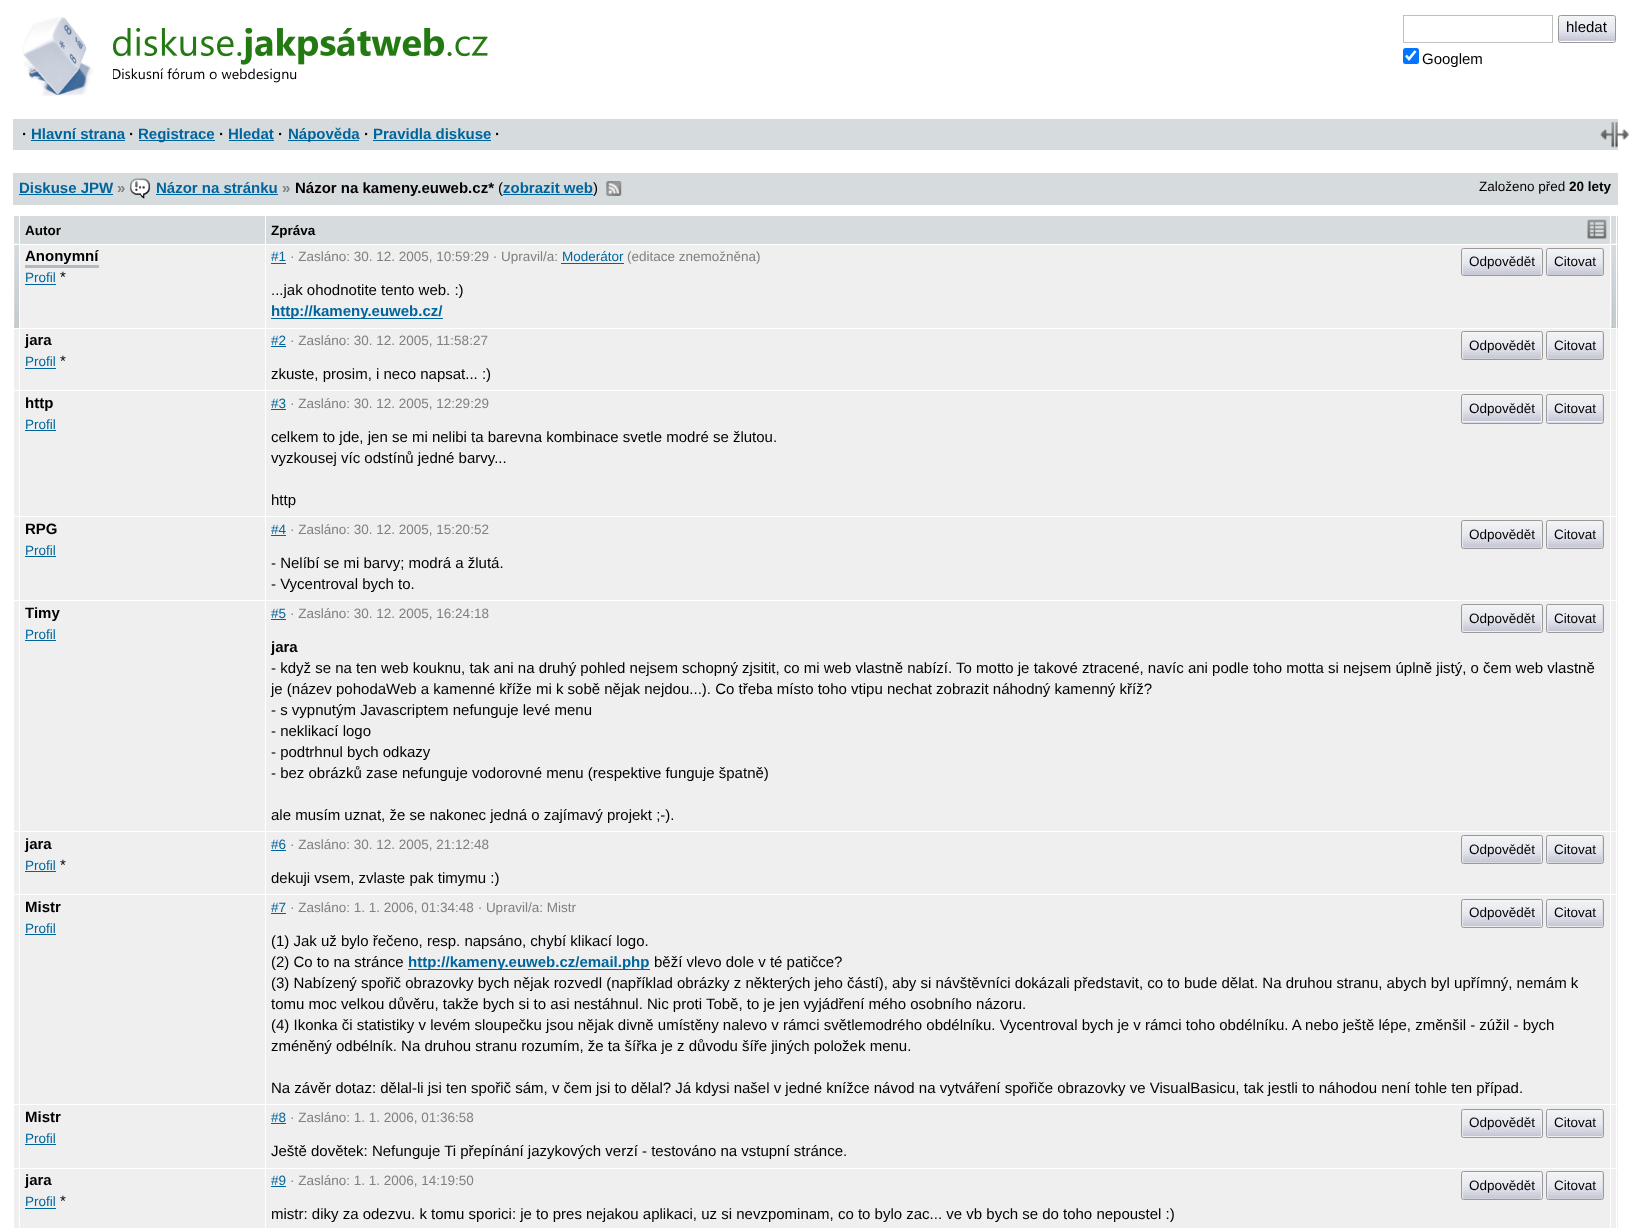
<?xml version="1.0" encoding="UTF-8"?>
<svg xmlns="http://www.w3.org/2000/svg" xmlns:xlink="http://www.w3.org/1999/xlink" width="1629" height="1228">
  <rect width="100%" height="100%" fill="#ffffff" />
  <image x="22" y="17" width="71" height="79" xlink:href="image1.png" />
  <image x="113" y="28" width="375" height="55" xlink:href="image2.png" />
  <rect x="1403.5" y="15.5" width="149" height="27" fill="none" stroke="#c0c0c0" />
  <rect x="1559" y="16" width="56" height="25" rx="1" fill="#d6dbde" />
  <image x="1559" y="16" width="56" height="25" xlink:href="image3.png" />
  <rect x="1558.5" y="15.5" width="57" height="27" rx="2" fill="none" stroke="#999999" />
  <rect x="1403" y="48" width="16" height="16" rx="2.5" fill="#0075ff" />
  <path d="M 1406 55.5 l 3 3.5 l 6.5 -8" fill="none" stroke="#ffffff" stroke-width="2.6" />
  <rect x="13" y="119" width="1605" height="31" fill="#d6dbde" />
  <rect x="31" y="140" width="94" height="1" fill="#00659c" />
  <rect x="139" y="140" width="76" height="1" fill="#00659c" />
  <rect x="229" y="140" width="45" height="1" fill="#00659c" />
  <rect x="288" y="140" width="71" height="1" fill="#00659c" />
  <rect x="373" y="140" width="118" height="1" fill="#00659c" />
  <image x="1600" y="122" width="29" height="26" xlink:href="image4.png" />
  <rect x="13" y="173" width="1605" height="32" fill="#d6dbde" />
  <rect x="19" y="194" width="94" height="1" fill="#00659c" />
  <image x="130" y="178" width="20" height="21" xlink:href="image5.png" />
  <rect x="156" y="194" width="122" height="1" fill="#00659c" />
  <rect x="503" y="194" width="90" height="1" fill="#00659c" />
  <image x="606" y="181" width="16" height="15" xlink:href="image6.png" />
  <rect x="1611" y="216" width="7" height="28" fill="#d6dbde" />
  <rect x="1611" y="244" width="7" height="84" fill="#b1bbc1" />
  <image x="1611" y="243" width="7" height="85" xlink:href="image10.png" />
  <rect x="14" y="329" width="1604" height="61" fill="#efefef" />
  <rect x="14" y="391" width="1604" height="209" fill="#efefef" />
  <rect x="14" y="601" width="1604" height="293" fill="#efefef" />
  <rect x="14" y="895" width="1604" height="209" fill="#efefef" />
  <rect x="14" y="1105" width="1604" height="63" fill="#efefef" />
  <rect x="14" y="1169" width="1604" height="59" fill="#efefef" />
  <rect x="1616" y="215" width="1" height="1013" fill="#ffffff" />
  <rect x="14" y="216" width="5" height="28" fill="#d6dbde" />
  <rect x="20" y="216" width="245" height="28" fill="#d6dbde" />
  <rect x="266" y="216" width="1344" height="28" fill="#d6dbde" />
  <rect x="20" y="245" width="1590" height="83" fill="#efefef" />
  <rect x="14" y="327" width="5" height="1" fill="#b1bbc1" />
  <image x="14" y="243" width="5" height="85" xlink:href="image7.png" />
  <rect x="13" y="244" width="7" height="1" fill="#ffffff" />
  <rect x="25" y="265" width="74" height="3" fill="#b1bbc1" />
  <rect x="25" y="284" width="31" height="1" fill="#00659c" />
  <rect x="271" y="263" width="15" height="1" fill="#00659c" />
  <rect x="561" y="263" width="63" height="1" fill="#00659c" />
  <rect x="1463" y="249" width="78" height="26" rx="1" fill="#d6dbde" />
  <image x="1462" y="249" width="79" height="26" xlink:href="image8.png" />
  <rect x="1461.5" y="248.5" width="81" height="27" rx="2" fill="none" stroke="#999999" />
  <rect x="1548" y="249" width="55" height="26" rx="1" fill="#d6dbde" />
  <image x="1547" y="249" width="56" height="26" xlink:href="image9.png" />
  <rect x="1546.5" y="248.5" width="57" height="27" rx="2" fill="none" stroke="#999999" />
  <rect x="271" y="318" width="172" height="1" fill="#00659c" />
  <rect x="1610" y="244" width="8" height="1" fill="#ffffff" />
  <rect x="25" y="368" width="31" height="1" fill="#00659c" />
  <rect x="271" y="346" width="15" height="1" fill="#00659c" />
  <rect x="1463" y="333" width="78" height="26" rx="1" fill="#d6dbde" />
  <image x="1462" y="332" width="79" height="27" xlink:href="image11.png" />
  <rect x="1461.5" y="331.5" width="81" height="28" rx="2" fill="none" stroke="#999999" />
  <rect x="1548" y="333" width="55" height="26" rx="1" fill="#d6dbde" />
  <image x="1547" y="332" width="56" height="27" xlink:href="image12.png" />
  <rect x="1546.5" y="331.5" width="57" height="28" rx="2" fill="none" stroke="#999999" />
  <rect x="1610" y="516" width="8" height="1" fill="#ffffff" />
  <rect x="1610" y="831" width="8" height="1" fill="#ffffff" />
  <rect x="1610" y="894" width="1" height="334" fill="#ffffff" />
  <rect x="1610" y="831" width="1" height="64" fill="#ffffff" />
  <rect x="265" y="831" width="1346" height="1" fill="#ffffff" />
  <rect x="1610" y="600" width="1" height="233" fill="#ffffff" />
  <rect x="1610" y="516" width="1" height="85" fill="#ffffff" />
  <rect x="265" y="516" width="1346" height="1" fill="#ffffff" />
  <rect x="265" y="894" width="1" height="334" fill="#ffffff" />
  <rect x="265" y="831" width="1" height="64" fill="#ffffff" />
  <rect x="19" y="831" width="247" height="1" fill="#ffffff" />
  <rect x="265" y="600" width="1" height="233" fill="#ffffff" />
  <rect x="265" y="516" width="1" height="85" fill="#ffffff" />
  <rect x="19" y="516" width="247" height="1" fill="#ffffff" />
  <rect x="19" y="894" width="1" height="334" fill="#ffffff" />
  <rect x="19" y="831" width="1" height="64" fill="#ffffff" />
  <rect x="13" y="831" width="7" height="1" fill="#ffffff" />
  <rect x="19" y="600" width="1" height="233" fill="#ffffff" />
  <rect x="19" y="516" width="1" height="85" fill="#ffffff" />
  <rect x="13" y="516" width="7" height="1" fill="#ffffff" />
  <rect x="19" y="328" width="1" height="190" fill="#ffffff" />
  <rect x="25" y="430" width="31" height="1" fill="#00659c" />
  <rect x="265" y="244" width="1" height="274" fill="#ffffff" />
  <rect x="271" y="409" width="15" height="1" fill="#00659c" />
  <rect x="1463" y="395" width="78" height="28" rx="1" fill="#d6dbde" />
  <image x="1462" y="395" width="79" height="27" xlink:href="image13.png" />
  <rect x="1461.5" y="394.5" width="81" height="29" rx="2" fill="none" stroke="#999999" />
  <rect x="1548" y="395" width="55" height="28" rx="1" fill="#d6dbde" />
  <image x="1547" y="395" width="56" height="27" xlink:href="image14.png" />
  <rect x="1546.5" y="394.5" width="57" height="29" rx="2" fill="none" stroke="#999999" />
  <rect x="1610" y="328" width="1" height="190" fill="#ffffff" />
  <rect x="25" y="556" width="31" height="1" fill="#00659c" />
  <rect x="271" y="535" width="15" height="1" fill="#00659c" />
  <rect x="1463" y="521" width="78" height="27" rx="1" fill="#d6dbde" />
  <image x="1462" y="521" width="79" height="26" xlink:href="image15.png" />
  <rect x="1461.5" y="520.5" width="81" height="28" rx="2" fill="none" stroke="#999999" />
  <rect x="1548" y="521" width="55" height="27" rx="1" fill="#d6dbde" />
  <image x="1547" y="521" width="56" height="26" xlink:href="image16.png" />
  <rect x="1546.5" y="520.5" width="57" height="28" rx="2" fill="none" stroke="#999999" />
  <rect x="25" y="640" width="31" height="1" fill="#00659c" />
  <rect x="271" y="619" width="15" height="1" fill="#00659c" />
  <rect x="1463" y="605" width="78" height="26" rx="1" fill="#d6dbde" />
  <image x="1462" y="605" width="79" height="26" xlink:href="image17.png" />
  <rect x="1461.5" y="604.5" width="81" height="28" rx="2" fill="none" stroke="#999999" />
  <rect x="1548" y="605" width="55" height="26" rx="1" fill="#d6dbde" />
  <image x="1547" y="605" width="56" height="26" xlink:href="image18.png" />
  <rect x="1546.5" y="604.5" width="57" height="28" rx="2" fill="none" stroke="#999999" />
  <rect x="25" y="871" width="31" height="1" fill="#00659c" />
  <rect x="271" y="850" width="15" height="1" fill="#00659c" />
  <rect x="1463" y="836" width="78" height="27" rx="1" fill="#d6dbde" />
  <image x="1462" y="836" width="79" height="26" xlink:href="image15.png" />
  <rect x="1461.5" y="835.5" width="81" height="28" rx="2" fill="none" stroke="#999999" />
  <rect x="1548" y="836" width="55" height="27" rx="1" fill="#d6dbde" />
  <image x="1547" y="836" width="56" height="26" xlink:href="image16.png" />
  <rect x="1546.5" y="835.5" width="57" height="28" rx="2" fill="none" stroke="#999999" />
  <rect x="25" y="934" width="31" height="1" fill="#00659c" />
  <rect x="271" y="913" width="15" height="1" fill="#00659c" />
  <rect x="1463" y="900" width="78" height="26" rx="1" fill="#d6dbde" />
  <image x="1462" y="900" width="79" height="26" xlink:href="image17.png" />
  <rect x="1461.5" y="899.5" width="81" height="28" rx="2" fill="none" stroke="#999999" />
  <rect x="1548" y="900" width="55" height="26" rx="1" fill="#d6dbde" />
  <image x="1547" y="900" width="56" height="26" xlink:href="image18.png" />
  <rect x="1546.5" y="899.5" width="57" height="28" rx="2" fill="none" stroke="#999999" />
  <rect x="408" y="969" width="242" height="1" fill="#00659c" />
  <rect x="25" y="1144" width="31" height="1" fill="#00659c" />
  <rect x="271" y="1123" width="15" height="1" fill="#00659c" />
  <rect x="1463" y="1110" width="78" height="26" rx="1" fill="#d6dbde" />
  <image x="1462" y="1110" width="79" height="26" xlink:href="image17.png" />
  <rect x="1461.5" y="1109.5" width="81" height="28" rx="2" fill="none" stroke="#999999" />
  <rect x="1548" y="1110" width="55" height="26" rx="1" fill="#d6dbde" />
  <image x="1547" y="1110" width="56" height="26" xlink:href="image18.png" />
  <rect x="1546.5" y="1109.5" width="57" height="28" rx="2" fill="none" stroke="#999999" />
  <rect x="25" y="1208" width="31" height="1" fill="#00659c" />
  <rect x="271" y="1186" width="15" height="1" fill="#00659c" />
  <rect x="1463" y="1173" width="78" height="26" rx="1" fill="#d6dbde" />
  <image x="1462" y="1172" width="79" height="27" xlink:href="image11.png" />
  <rect x="1461.5" y="1171.5" width="81" height="28" rx="2" fill="none" stroke="#999999" />
  <rect x="1548" y="1173" width="55" height="26" rx="1" fill="#d6dbde" />
  <image x="1547" y="1172" width="56" height="27" xlink:href="image12.png" />
  <rect x="1546.5" y="1171.5" width="57" height="28" rx="2" fill="none" stroke="#999999" />
  <image x="1587" y="219" width="20" height="20" xlink:href="image19.png" />
  <text x="1566" y="32" style="font-family: Liberation Sans; font-size: 15px; fill: #000000">hledat</text>
  <text x="1422" y="64" style="font-family: Liberation Sans; font-size: 15px; fill: #000000">Googlem</text>
  <text x="22" y="139" style="font-family: Liberation Sans; font-size: 15px; font-weight: bold; fill: #000000">·</text>
  <text x="31" y="139" style="font-family: Liberation Sans; font-size: 15px; font-weight: bold; fill: #00659c">Hlavní strana</text>
  <text x="129" y="139" style="font-family: Liberation Sans; font-size: 15px; font-weight: bold; fill: #000000">·</text>
  <text x="138" y="139" style="font-family: Liberation Sans; font-size: 15px; font-weight: bold; fill: #00659c">Registrace</text>
  <text x="219" y="139" style="font-family: Liberation Sans; font-size: 15px; font-weight: bold; fill: #000000">·</text>
  <text x="228" y="139" style="font-family: Liberation Sans; font-size: 15px; font-weight: bold; fill: #00659c">Hledat</text>
  <text x="278" y="139" style="font-family: Liberation Sans; font-size: 15px; font-weight: bold; fill: #000000">·</text>
  <text x="288" y="139" style="font-family: Liberation Sans; font-size: 15px; font-weight: bold; fill: #00659c">Nápověda</text>
  <text x="364" y="139" style="font-family: Liberation Sans; font-size: 15px; font-weight: bold; fill: #000000">·</text>
  <text x="373" y="139" style="font-family: Liberation Sans; font-size: 15px; font-weight: bold; fill: #00659c">Pravidla diskuse</text>
  <text x="495" y="139" style="font-family: Liberation Sans; font-size: 15px; font-weight: bold; fill: #000000">·</text>
  <text x="19" y="193" style="font-family: Liberation Sans; font-size: 15px; font-weight: bold; fill: #00659c">Diskuse JPW</text>
  <text x="117" y="193" style="font-family: Liberation Sans; font-size: 15px; font-weight: bold; fill: #808080">»</text>
  <text x="156" y="193" style="font-family: Liberation Sans; font-size: 15px; font-weight: bold; fill: #00659c">Názor na stránku</text>
  <text x="282" y="193" style="font-family: Liberation Sans; font-size: 15px; font-weight: bold; fill: #808080">»</text>
  <text x="295" y="193" style="font-family: Liberation Sans; font-size: 15px; font-weight: bold; fill: #000000">Názor na kameny.euweb.cz*</text>
  <text x="498" y="193" style="font-family: Liberation Sans; font-size: 15px; fill: #000000">(</text>
  <text x="503" y="193" style="font-family: Liberation Sans; font-size: 15px; font-weight: bold; fill: #00659c">zobrazit web</text>
  <text x="593" y="193" style="font-family: Liberation Sans; font-size: 15px; fill: #000000">)</text>
  <text x="1479" y="191" style="font-family: Liberation Sans; font-size: 13.5px; fill: #000000">Založeno před</text>
  <text x="1569" y="191" style="font-family: Liberation Sans; font-size: 13.5px; font-weight: bold; fill: #000000">20 lety</text>
  <text x="25" y="235" style="font-family: Liberation Sans; font-size: 13.5px; font-weight: bold; fill: #000000">Autor</text>
  <text x="271" y="235" style="font-family: Liberation Sans; font-size: 13.5px; font-weight: bold; fill: #000000">Zpráva</text>
  <text x="25" y="261" style="font-family: Liberation Sans; font-size: 15px; font-weight: bold; fill: #000000">Anonymní</text>
  <text x="25" y="282" style="font-family: Liberation Sans; font-size: 13.5px; fill: #00659c">Profil</text>
  <text x="60" y="282" style="font-family: Liberation Sans; font-size: 15px; fill: #000000">*</text>
  <text x="271" y="261" style="font-family: Liberation Sans; font-size: 13.5px; fill: #00659c">#1</text>
  <text x="290" y="261" style="font-family: Liberation Sans; font-size: 13.5px; fill: #808080">· Zasláno: 30. 12. 2005, 10:59:29 · Upravil/a:</text>
  <text x="562" y="261" style="font-family: Liberation Sans; font-size: 13.5px; fill: #00659c">Moderátor</text>
  <text x="627" y="261" style="font-family: Liberation Sans; font-size: 13.5px; fill: #808080">(editace znemožněna)</text>
  <text x="1469" y="266" style="font-family: Liberation Sans; font-size: 13.5px; fill: #000000">Odpovědět</text>
  <text x="1554" y="266" style="font-family: Liberation Sans; font-size: 13.5px; fill: #000000">Citovat</text>
  <text x="271" y="295" style="font-family: Liberation Sans; font-size: 15px; fill: #000000">...jak ohodnotite tento web. :)</text>
  <text x="271" y="316" style="font-family: Liberation Sans; font-size: 15px; font-weight: bold; fill: #00659c">http://kameny.euweb.cz/</text>
  <text x="25" y="345" style="font-family: Liberation Sans; font-size: 15px; font-weight: bold; fill: #000000">jara</text>
  <text x="25" y="366" style="font-family: Liberation Sans; font-size: 13.5px; fill: #00659c">Profil</text>
  <text x="60" y="366" style="font-family: Liberation Sans; font-size: 15px; fill: #000000">*</text>
  <text x="271" y="345" style="font-family: Liberation Sans; font-size: 13.5px; fill: #00659c">#2</text>
  <text x="290" y="345" style="font-family: Liberation Sans; font-size: 13.5px; fill: #808080">· Zasláno: 30. 12. 2005, 11:58:27</text>
  <text x="1469" y="350" style="font-family: Liberation Sans; font-size: 13.5px; fill: #000000">Odpovědět</text>
  <text x="1554" y="350" style="font-family: Liberation Sans; font-size: 13.5px; fill: #000000">Citovat</text>
  <text x="271" y="379" style="font-family: Liberation Sans; font-size: 15px; fill: #000000">zkuste, prosim, i neco napsat... :)</text>
  <text x="25" y="408" style="font-family: Liberation Sans; font-size: 15px; font-weight: bold; fill: #000000">http</text>
  <text x="25" y="429" style="font-family: Liberation Sans; font-size: 13.5px; fill: #00659c">Profil</text>
  <text x="271" y="408" style="font-family: Liberation Sans; font-size: 13.5px; fill: #00659c">#3</text>
  <text x="290" y="408" style="font-family: Liberation Sans; font-size: 13.5px; fill: #808080">· Zasláno: 30. 12. 2005, 12:29:29</text>
  <text x="1469" y="413" style="font-family: Liberation Sans; font-size: 13.5px; fill: #000000">Odpovědět</text>
  <text x="1554" y="413" style="font-family: Liberation Sans; font-size: 13.5px; fill: #000000">Citovat</text>
  <text x="271" y="442" style="font-family: Liberation Sans; font-size: 15px; fill: #000000">celkem to jde, jen se mi nelibi ta barevna kombinace svetle modré se žlutou.</text>
  <text x="271" y="463" style="font-family: Liberation Sans; font-size: 15px; fill: #000000">vyzkousej víc odstínů jedné barvy...</text>
  <text x="271" y="505" style="font-family: Liberation Sans; font-size: 15px; fill: #000000">http</text>
  <text x="25" y="534" style="font-family: Liberation Sans; font-size: 15px; font-weight: bold; fill: #000000">RPG</text>
  <text x="25" y="555" style="font-family: Liberation Sans; font-size: 13.5px; fill: #00659c">Profil</text>
  <text x="271" y="534" style="font-family: Liberation Sans; font-size: 13.5px; fill: #00659c">#4</text>
  <text x="290" y="534" style="font-family: Liberation Sans; font-size: 13.5px; fill: #808080">· Zasláno: 30. 12. 2005, 15:20:52</text>
  <text x="1469" y="539" style="font-family: Liberation Sans; font-size: 13.5px; fill: #000000">Odpovědět</text>
  <text x="1554" y="539" style="font-family: Liberation Sans; font-size: 13.5px; fill: #000000">Citovat</text>
  <text x="271" y="568" style="font-family: Liberation Sans; font-size: 15px; fill: #000000">- Nelíbí se mi barvy; modrá a žlutá.</text>
  <text x="271" y="589" style="font-family: Liberation Sans; font-size: 15px; fill: #000000">- Vycentroval bych to.</text>
  <text x="25" y="618" style="font-family: Liberation Sans; font-size: 15px; font-weight: bold; fill: #000000">Timy</text>
  <text x="25" y="639" style="font-family: Liberation Sans; font-size: 13.5px; fill: #00659c">Profil</text>
  <text x="271" y="618" style="font-family: Liberation Sans; font-size: 13.5px; fill: #00659c">#5</text>
  <text x="290" y="618" style="font-family: Liberation Sans; font-size: 13.5px; fill: #808080">· Zasláno: 30. 12. 2005, 16:24:18</text>
  <text x="1469" y="623" style="font-family: Liberation Sans; font-size: 13.5px; fill: #000000">Odpovědět</text>
  <text x="1554" y="623" style="font-family: Liberation Sans; font-size: 13.5px; fill: #000000">Citovat</text>
  <text x="271" y="652" style="font-family: Liberation Sans; font-size: 15px; font-weight: bold; fill: #000000">jara</text>
  <text x="271" y="673" style="font-family: Liberation Sans; font-size: 15px; fill: #000000">- když se na ten web kouknu, tak ani na druhý pohled nejsem schopný zjsitit, co mi web vlastně nabízí. To motto je takové ztracené, navíc ani podle toho motta si nejsem úplně jistý, o čem web vlastně</text>
  <text x="271" y="694" style="font-family: Liberation Sans; font-size: 15px; fill: #000000">je (název pohodaWeb a kamenné kříže mi k sobě nějak nejdou...). Co třeba místo toho vtipu nechat zobrazit náhodný kamenný kříž?</text>
  <text x="271" y="715" style="font-family: Liberation Sans; font-size: 15px; fill: #000000">- s vypnutým Javascriptem nefunguje levé menu</text>
  <text x="271" y="736" style="font-family: Liberation Sans; font-size: 15px; fill: #000000">- neklikací logo</text>
  <text x="271" y="757" style="font-family: Liberation Sans; font-size: 15px; fill: #000000">- podtrhnul bych odkazy</text>
  <text x="271" y="778" style="font-family: Liberation Sans; font-size: 15px; fill: #000000">- bez obrázků zase nefunguje vodorovné menu (respektive funguje špatně)</text>
  <text x="271" y="820" style="font-family: Liberation Sans; font-size: 15px; fill: #000000">ale musím uznat, že se nakonec jedná o zajímavý projekt ;-).</text>
  <text x="25" y="849" style="font-family: Liberation Sans; font-size: 15px; font-weight: bold; fill: #000000">jara</text>
  <text x="25" y="870" style="font-family: Liberation Sans; font-size: 13.5px; fill: #00659c">Profil</text>
  <text x="60" y="870" style="font-family: Liberation Sans; font-size: 15px; fill: #000000">*</text>
  <text x="271" y="849" style="font-family: Liberation Sans; font-size: 13.5px; fill: #00659c">#6</text>
  <text x="290" y="849" style="font-family: Liberation Sans; font-size: 13.5px; fill: #808080">· Zasláno: 30. 12. 2005, 21:12:48</text>
  <text x="1469" y="854" style="font-family: Liberation Sans; font-size: 13.5px; fill: #000000">Odpovědět</text>
  <text x="1554" y="854" style="font-family: Liberation Sans; font-size: 13.5px; fill: #000000">Citovat</text>
  <text x="271" y="883" style="font-family: Liberation Sans; font-size: 15px; fill: #000000">dekuji vsem, zvlaste pak timymu :)</text>
  <text x="25" y="912" style="font-family: Liberation Sans; font-size: 15px; font-weight: bold; fill: #000000">Mistr</text>
  <text x="25" y="933" style="font-family: Liberation Sans; font-size: 13.5px; fill: #00659c">Profil</text>
  <text x="271" y="912" style="font-family: Liberation Sans; font-size: 13.5px; fill: #00659c">#7</text>
  <text x="290" y="912" style="font-family: Liberation Sans; font-size: 13.5px; fill: #808080">· Zasláno: 1. 1. 2006, 01:34:48 · Upravil/a: Mistr</text>
  <text x="1469" y="917" style="font-family: Liberation Sans; font-size: 13.5px; fill: #000000">Odpovědět</text>
  <text x="1554" y="917" style="font-family: Liberation Sans; font-size: 13.5px; fill: #000000">Citovat</text>
  <text x="271" y="946" style="font-family: Liberation Sans; font-size: 15px; fill: #000000">(1) Jak už bylo řečeno, resp. napsáno, chybí klikací logo.</text>
  <text x="271" y="967" style="font-family: Liberation Sans; font-size: 15px; fill: #000000">(2) Co to na stránce</text>
  <text x="408" y="967" style="font-family: Liberation Sans; font-size: 15px; font-weight: bold; fill: #00659c">http://kameny.euweb.cz/email.php</text>
  <text x="654" y="967" style="font-family: Liberation Sans; font-size: 15px; fill: #000000">běží vlevo dole v té patičce?</text>
  <text x="271" y="988" style="font-family: Liberation Sans; font-size: 15px; fill: #000000">(3) Nabízený spořič obrazovky bych nějak rozvedl (například obrázky z některých jeho částí), aby si návštěvníci dokázali představit, co to bude dělat. Na druhou stranu, abych byl upřímný, nemám k</text>
  <text x="271" y="1009" style="font-family: Liberation Sans; font-size: 15px; fill: #000000">tomu moc velkou důvěru, takže bych si to asi nestáhnul. Nic proti Tobě, to je jen vyjádření mého osobního názoru.</text>
  <text x="271" y="1030" style="font-family: Liberation Sans; font-size: 15px; fill: #000000">(4) Ikonka či statistiky v levém sloupečku jsou nějak divně umístěny nalevo v rámci světlemodrého obdélníku. Vycentroval bych je v rámci toho obdélníku. A nebo ještě lépe, změnšil - zúžil - bych</text>
  <text x="271" y="1051" style="font-family: Liberation Sans; font-size: 15px; fill: #000000">zméněný odbélník. Na druhou stranu rozumím, že ta šířka je z důvodu šíře jiných položek menu.</text>
  <text x="271" y="1093" style="font-family: Liberation Sans; font-size: 15px; fill: #000000">Na závěr dotaz: dělal-li jsi ten spořič sám, v čem jsi to dělal? Já kdysi našel v jedné knížce návod na vytváření spořiče obrazovky ve VisualBasicu, tak jestli to náhodou není tohle ten případ.</text>
  <text x="25" y="1122" style="font-family: Liberation Sans; font-size: 15px; font-weight: bold; fill: #000000">Mistr</text>
  <text x="25" y="1143" style="font-family: Liberation Sans; font-size: 13.5px; fill: #00659c">Profil</text>
  <text x="271" y="1122" style="font-family: Liberation Sans; font-size: 13.5px; fill: #00659c">#8</text>
  <text x="290" y="1122" style="font-family: Liberation Sans; font-size: 13.5px; fill: #808080">· Zasláno: 1. 1. 2006, 01:36:58</text>
  <text x="1469" y="1127" style="font-family: Liberation Sans; font-size: 13.5px; fill: #000000">Odpovědět</text>
  <text x="1554" y="1127" style="font-family: Liberation Sans; font-size: 13.5px; fill: #000000">Citovat</text>
  <text x="271" y="1156" style="font-family: Liberation Sans; font-size: 15px; fill: #000000">Ještě dovětek: Nefunguje Ti přepínání jazykových verzí - testováno na vstupní stránce.</text>
  <text x="25" y="1185" style="font-family: Liberation Sans; font-size: 15px; font-weight: bold; fill: #000000">jara</text>
  <text x="25" y="1206" style="font-family: Liberation Sans; font-size: 13.5px; fill: #00659c">Profil</text>
  <text x="60" y="1206" style="font-family: Liberation Sans; font-size: 15px; fill: #000000">*</text>
  <text x="271" y="1185" style="font-family: Liberation Sans; font-size: 13.5px; fill: #00659c">#9</text>
  <text x="290" y="1185" style="font-family: Liberation Sans; font-size: 13.5px; fill: #808080">· Zasláno: 1. 1. 2006, 14:19:50</text>
  <text x="1469" y="1190" style="font-family: Liberation Sans; font-size: 13.5px; fill: #000000">Odpovědět</text>
  <text x="1554" y="1190" style="font-family: Liberation Sans; font-size: 13.5px; fill: #000000">Citovat</text>
  <text x="271" y="1219" style="font-family: Liberation Sans; font-size: 15px; fill: #000000">mistr: diky za odezvu. k tomu sporici: je to pres nejakou aplikaci, uz si nevzpominam, co to bylo zac... ve vb bych se do toho nepoustel :)</text>
</svg>
